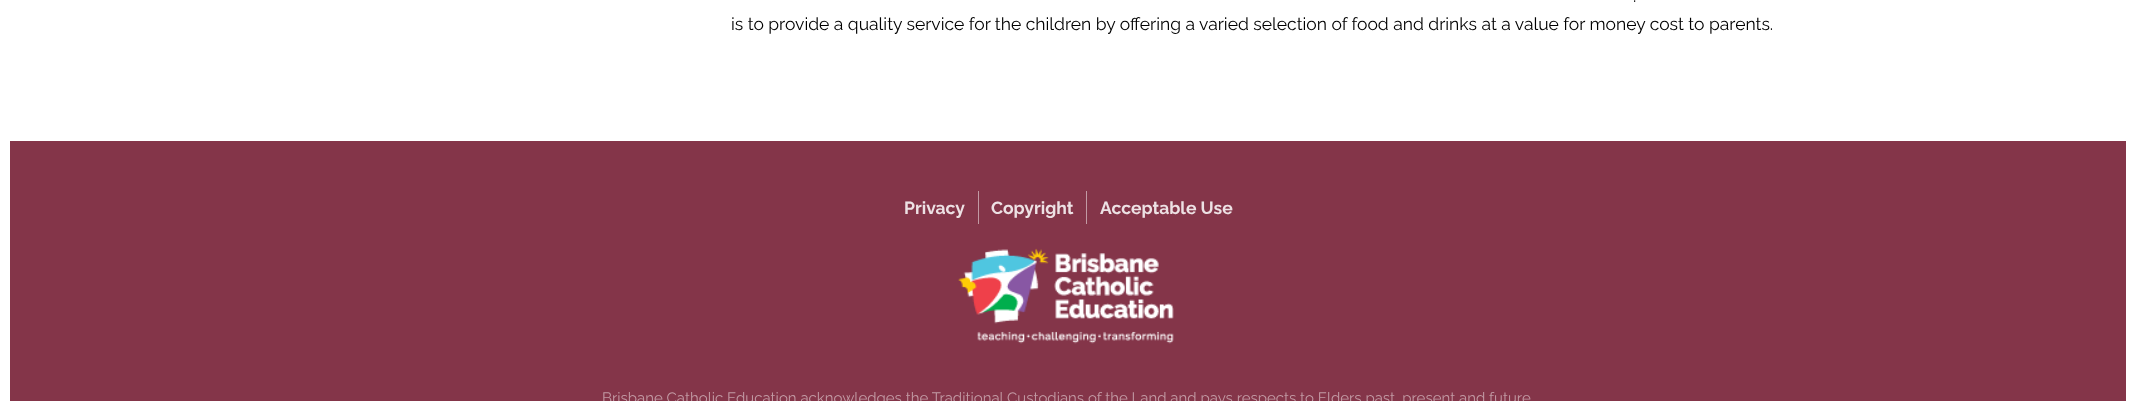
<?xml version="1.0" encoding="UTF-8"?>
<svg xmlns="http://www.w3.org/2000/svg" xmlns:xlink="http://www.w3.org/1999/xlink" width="2136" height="401">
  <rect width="100%" height="100%" fill="#ffffff" />
  <rect x="10" y="141" width="2116" height="260" fill="#843549" />
  <rect x="978" y="191" width="1" height="33" fill="#c29aa4" />
  <rect x="1086" y="191" width="1" height="33" fill="#c29aa4" />
  <image x="958" y="248" width="216" height="96" xlink:href="image1.png" />
  <text x="1633" y="2" style="font-family: Raleway; font-size: 17.5px; fill: #000000">.</text>
  <text x="731" y="30" style="font-family: Raleway; font-size: 17.5px; fill: #000000">is to provide a quality service for the children by offering a varied selection of food and drinks at a value for money cost to parents.</text>
  <text x="904" y="214" style="font-family: Raleway; font-size: 17.5px; font-weight: bold; fill: #ede1e4">Privacy</text>
  <text x="991" y="214" style="font-family: Raleway; font-size: 17.5px; font-weight: bold; fill: #ede1e4">Copyright</text>
  <text x="1100" y="214" style="font-family: Raleway; font-size: 17.5px; font-weight: bold; fill: #ede1e4">Acceptable Use</text>
  <text x="602" y="403" style="font-family: Raleway; font-size: 15px; fill: #c29aa4">Brisbane Catholic Education acknowledges the Traditional Custodians of the Land and pays respects to Elders past, present and future</text>
</svg>
